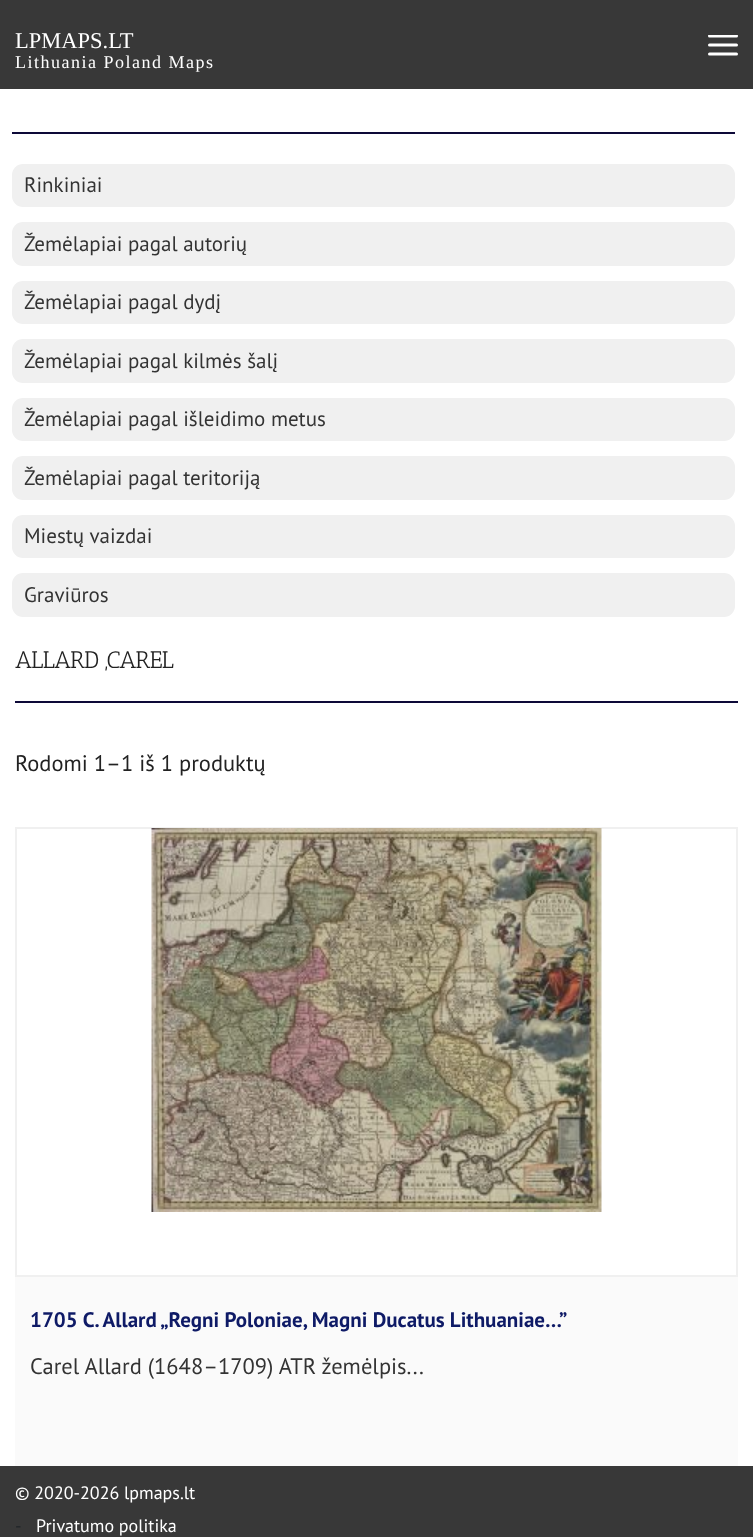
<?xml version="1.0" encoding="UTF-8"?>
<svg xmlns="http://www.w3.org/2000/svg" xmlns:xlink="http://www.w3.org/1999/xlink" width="753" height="1537">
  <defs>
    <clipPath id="clip1"><rect x="708" y="35" width="30" height="21" /></clipPath>
  </defs>
  <rect width="100%" height="100%" fill="#ffffff" />
  <rect width="753" height="89" fill="#383838" />
  <g clip-path="url(#clip1)">
    <path d="M 709.5 45 h 27 m -27 -9 h 27 m -27 18 h 27" fill="none" stroke="#ffffff" stroke-width="3" stroke-linecap="round" stroke-linejoin="round" />
  </g>
  <rect x="12" y="132" width="723" height="2" fill="#0d0938" />
  <rect x="12" y="164" width="723" height="43" rx="11" fill="#f0f0f0" />
  <rect x="12" y="222" width="723" height="44" rx="11" fill="#f0f0f0" />
  <rect x="12" y="281" width="723" height="43" rx="11" fill="#f0f0f0" />
  <rect x="12" y="339" width="723" height="44" rx="11" fill="#f0f0f0" />
  <rect x="12" y="398" width="723" height="43" rx="11" fill="#f0f0f0" />
  <rect x="12" y="456" width="723" height="44" rx="11" fill="#f0f0f0" />
  <rect x="12" y="515" width="723" height="43" rx="11" fill="#f0f0f0" />
  <rect x="12" y="573" width="723" height="44" rx="11" fill="#f0f0f0" />
  <rect x="15" y="701" width="723" height="2" fill="#0d0938" />
  <rect x="16" y="828" width="721" height="448" fill="none" stroke="#f0f0f0" stroke-width="2" />
  <image x="151" y="828" width="451" height="384" xlink:href="image1.png" />
  <rect x="15" y="1277" width="723" height="189" fill="#fafafa" />
  <rect y="1466" width="753" height="71" fill="#383838" />
  <text x="15" y="48" style="font-family: Liberation Serif; font-size: 22.5px; fill: #ffffff">LPMAPS.LT</text>
  <text x="15" y="68" style="font-family: Liberation Serif; font-size: 18px; letter-spacing: 1.5px; fill: #ffffff">Lithuania Poland Maps</text>
  <text x="24" y="192" style="font-family: PT Sans; font-size: 21px; fill: #333333">Rinkiniai</text>
  <text x="24" y="251" style="font-family: PT Sans; font-size: 21px; fill: #333333">Žemėlapiai pagal autorių</text>
  <text x="24" y="309" style="font-family: PT Sans; font-size: 21px; fill: #333333">Žemėlapiai pagal dydį</text>
  <text x="24" y="368" style="font-family: PT Sans; font-size: 21px; fill: #333333">Žemėlapiai pagal kilmės šalį</text>
  <text x="24" y="426" style="font-family: PT Sans; font-size: 21px; fill: #333333">Žemėlapiai pagal išleidimo metus</text>
  <text x="24" y="485" style="font-family: PT Sans; font-size: 21px; fill: #333333">Žemėlapiai pagal teritoriją</text>
  <text x="24" y="543" style="font-family: PT Sans; font-size: 21px; fill: #333333">Miestų vaizdai</text>
  <text x="24" y="602" style="font-family: PT Sans; font-size: 21px; fill: #333333">Graviūros</text>
  <text x="15" y="668" style="font-family: Antic Slab; font-size: 24px; letter-spacing: -0.75px; fill: #222222">ALLARD ,CAREL</text>
  <text x="15" y="771" style="font-family: PT Sans; font-size: 22.5px; fill: #222222">Rodomi 1–1 iš 1 produktų</text>
  <text x="30" y="1327" style="font-family: PT Sans; font-size: 21px; font-weight: bold; fill: #0e1a66">1705 C. Allard „Regni Poloniae, Magni Ducatus Lithuaniae…”</text>
  <text x="30" y="1374" style="font-family: PT Sans; font-size: 22.5px; fill: #333333">Carel Allard (1648–1709) ATR žemėlpis...</text>
  <text x="15" y="1499" style="font-family: PT Sans; font-size: 18px; fill: #ffffff">© 2020-2026 lpmaps.lt</text>
  <text x="15" y="1532" style="font-family: PT Sans; font-size: 18px; fill: #212529">-</text>
  <text x="36" y="1532" style="font-family: PT Sans; font-size: 18px; fill: #ffffff">Privatumo politika</text>
</svg>
